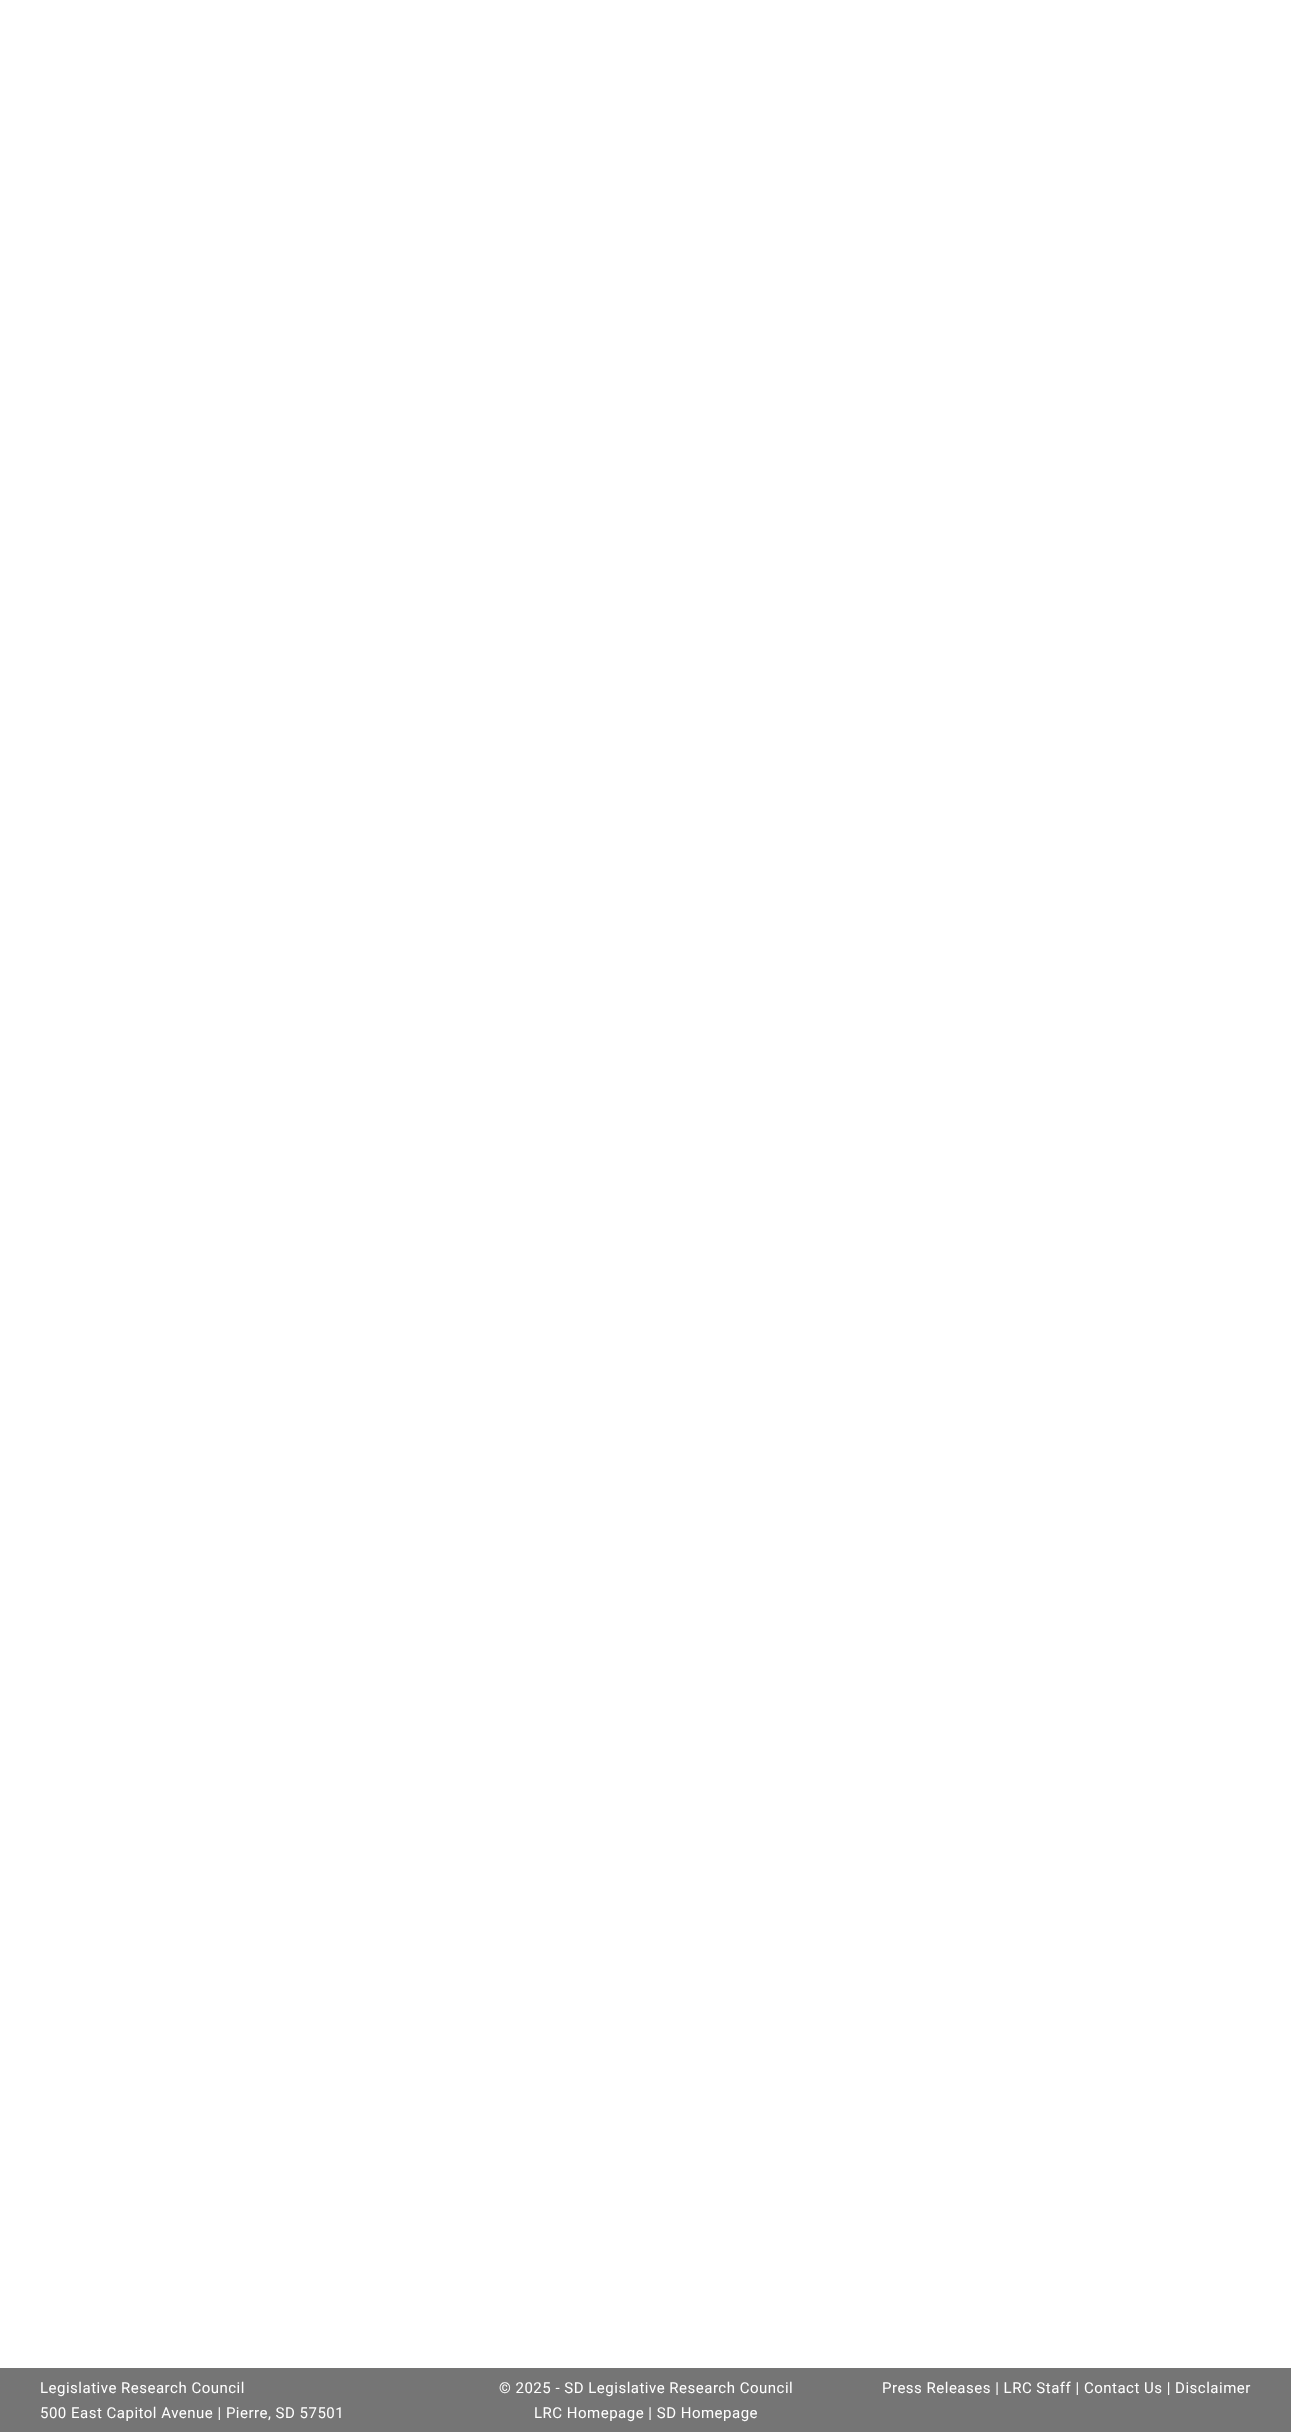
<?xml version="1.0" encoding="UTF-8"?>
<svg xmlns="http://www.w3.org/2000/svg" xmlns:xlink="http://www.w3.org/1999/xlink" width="1291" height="2432">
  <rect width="100%" height="100%" fill="#ffffff" />
  <rect y="2368" width="1291" height="64" fill="#757575" />
  <text x="40" y="2393" style="font-family: Roboto; font-size: 15px; letter-spacing: 0.5px; fill: #ffffff">Legislative Research Council</text>
  <text x="40" y="2418" style="font-family: Roboto; font-size: 15px; letter-spacing: 0.5px; fill: #ffffff">500 East Capitol Avenue | Pierre, SD 57501</text>
  <text x="499" y="2393" style="font-family: Roboto; font-size: 15px; letter-spacing: 0.5px; fill: #ffffff">© 2025 - SD Legislative Research Council</text>
  <text x="534" y="2418" style="font-family: Roboto; font-size: 15px; letter-spacing: 0.5px; fill: #ffffff">LRC Homepage | SD Homepage</text>
  <text x="882" y="2393" style="font-family: Roboto; font-size: 15px; letter-spacing: 0.5px; fill: #ffffff">Press Releases | LRC Staff | Contact Us | Disclaimer</text>
</svg>
